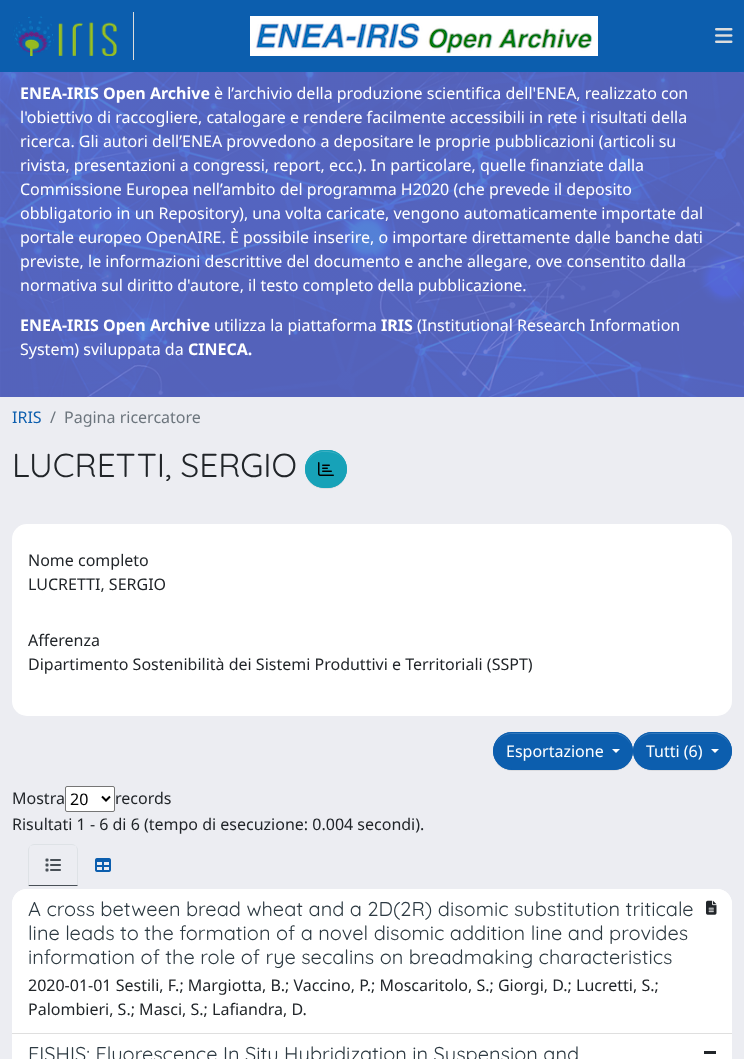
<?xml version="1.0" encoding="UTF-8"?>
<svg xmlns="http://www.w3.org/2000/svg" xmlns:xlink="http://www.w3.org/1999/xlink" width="744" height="1059">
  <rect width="100%" height="100%" fill="#ecedf2" />
  <rect width="744" height="72" fill="#0c5eae" />
  <rect x="133" y="12" width="1" height="48" fill="#dddddd" />
  <image x="13" y="16" width="104" height="40" xlink:href="image1.png" />
  <image x="250" y="16" width="348" height="40" xlink:href="image2.png" />
  <image x="715" y="28" width="18" height="15" xlink:href="image3.png" />
  <image x="0" y="72" width="744" height="325" xlink:href="image4.png" />
  <rect x="305" y="451" width="42" height="38" rx="19" fill="#000000" fill-opacity="0.07" filter="blur(0.5px)" />
  <rect x="305" y="450" width="42" height="38" rx="19" fill="#17a2b8" />
  <path d="M 324 452 c 10 0 19 2 22 14 c -4 -23 -43 -19 -40 5 c -1 -9 6 -19 18 -19 z" fill="#3ab0c3" />
  <rect x="305.5" y="450.5" width="41" height="37" rx="18.5" fill="none" stroke="#17a2b8" />
  <image x="318" y="462" width="16" height="14" xlink:href="image5.png" />
  <rect x="12" y="524" width="720" height="192" rx="15" fill="#ffffff" />
  <rect x="633" y="733" width="99" height="38" rx="19" fill="#000000" fill-opacity="0.07" filter="blur(0.5px)" />
  <rect x="633" y="732" width="99" height="38" rx="19" fill="#0c5eae" />
  <path d="M 652 734 h 61 c 10 0 18 8 18 17 c 0 -8 -6 -16 -14 -18 h -14 h -55 c -8 2 -14 10 -14 18 c 0 -9 8 -17 18 -17 z" fill="#3076ba" />
  <rect x="633.5" y="732.5" width="98" height="37" rx="18.5" fill="none" stroke="#0c5eae" />
  <rect x="493" y="733" width="140" height="38" rx="19" fill="#000000" fill-opacity="0.07" filter="blur(0.5px)" />
  <rect x="493" y="732" width="140" height="38" rx="19" fill="#0c5eae" />
  <path d="M 512 734 h 102 c 10 0 18 8 18 17 c 0 -10 -8 -18 -18 -18 h -102 c -10 0 -18 8 -18 18 c 0 -9 8 -17 18 -17 z" fill="#3076ba" />
  <rect x="493.5" y="732.5" width="139" height="37" rx="18.5" fill="none" stroke="#0c5eae" />
  <path d="M 612 749 h 8 l -4 4 z" fill="#ffffff" />
  <path d="M 711 749 h 8 l -4 4 z" fill="#ffffff" />
  <rect x="65.5" y="786.5" width="49" height="25" rx="1.5" fill="#ffffff" stroke="#767676" />
  <path d="M 102 796.5 l 4 4 l 4 -4" fill="none" stroke="#000000" stroke-width="2" />
  <path d="M 34 844 c -2 0 -3 1 -4 2 c 1 0 2 -1 4 -1 h 38 c 2 0 3 1 4 1 c -1 -1 -2 -2 -4 -2 z m 44 42 v -36 c 0 -2 -1 -3 -2 -4 c 0 1 1 2 1 4 v 35 z" fill="#dee2e6" />
  <path d="M 78 886 l -1 -1 h -48 l -1 1 z" fill="#495057" />
  <path d="M 28 886 l 1 -1 v -35 c 0 -2 1 -3 1 -4 c -1 1 -2 2 -2 4 z" fill="#dee2e6" />
  <image x="45" y="858" width="16" height="14" xlink:href="image6.png" />
  <image x="95" y="858" width="16" height="14" xlink:href="image7.png" />
  <rect x="12" y="889" width="720" height="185" rx="15" fill="#ffffff" />
  <path d="M 27 889 h 690 c 8.5 0 15 6.5 15 15 v 130 h -720 v -130 c 0 -8.5 6.5 -15 15 -15 z" fill="#ffffff" />
  <rect x="12" y="1033" width="720" height="1" fill="#dfdfdf" />
  <image x="706" y="900" width="11" height="15" xlink:href="image8.png" />
  <rect x="704" y="1051" width="12" height="3" fill="#212529" />
  <text x="20" y="99" style="font-family: Noto Sans; font-size: 16px; font-weight: bold; fill: #ffffff">ENEA-IRIS Open Archive</text>
  <text x="214" y="99" style="font-family: Noto Sans; font-size: 16px; fill: #ffffff">è l’archivio della produzione scientifica dell'ENEA, realizzato con</text>
  <text x="20" y="123" style="font-family: Noto Sans; font-size: 16px; fill: #ffffff">l'obiettivo di raccogliere, catalogare e rendere facilmente accessibili in rete i risultati della</text>
  <text x="20" y="147" style="font-family: Noto Sans; font-size: 16px; fill: #ffffff">ricerca. Gli autori dell’ENEA provvedono a depositare le proprie pubblicazioni (articoli su</text>
  <text x="20" y="171" style="font-family: Noto Sans; font-size: 16px; fill: #ffffff">rivista, presentazioni a congressi, report, ecc.). In particolare, quelle finanziate dalla</text>
  <text x="20" y="195" style="font-family: Noto Sans; font-size: 16px; fill: #ffffff">Commissione Europea nell’ambito del programma H2020 (che prevede il deposito</text>
  <text x="20" y="219" style="font-family: Noto Sans; font-size: 16px; fill: #ffffff">obbligatorio in un Repository), una volta caricate, vengono automaticamente importate dal</text>
  <text x="20" y="243" style="font-family: Noto Sans; font-size: 16px; fill: #ffffff">portale europeo OpenAIRE. È possibile inserire, o importare direttamente dalle banche dati</text>
  <text x="20" y="267" style="font-family: Noto Sans; font-size: 16px; fill: #ffffff">previste, le informazioni descrittive del documento e anche allegare, ove consentito dalla</text>
  <text x="20" y="291" style="font-family: Noto Sans; font-size: 16px; fill: #ffffff">normativa sul diritto d'autore, il testo completo della pubblicazione.</text>
  <text x="20" y="331" style="font-family: Noto Sans; font-size: 16px; font-weight: bold; fill: #ffffff">ENEA-IRIS Open Archive</text>
  <text x="214" y="331" style="font-family: Noto Sans; font-size: 16px; fill: #ffffff">utilizza la piattaforma</text>
  <text x="381" y="331" style="font-family: Noto Sans; font-size: 16px; font-weight: bold; fill: #ffffff">IRIS</text>
  <text x="417" y="331" style="font-family: Noto Sans; font-size: 16px; fill: #ffffff">(Institutional Research Information</text>
  <text x="20" y="355" style="font-family: Noto Sans; font-size: 16px; fill: #ffffff">System) sviluppata da</text>
  <text x="188" y="355" style="font-family: Noto Sans; font-size: 16px; font-weight: bold; fill: #ffffff">CINECA.</text>
  <text x="12" y="423" style="font-family: Noto Sans; font-size: 16px; fill: #0c5eae">IRIS</text>
  <text x="50" y="423" style="font-family: Noto Sans; font-size: 16px; fill: #6c757d">/</text>
  <text x="64" y="423" style="font-family: Noto Sans; font-size: 16px; fill: #6c757d">Pagina ricercatore</text>
  <text x="12" y="477" style="font-family: Quicksand; font-size: 33.25px; font-weight: 300; fill: #212529">LUCRETTI, SERGIO</text>
  <text x="28" y="566" style="font-family: Noto Sans; font-size: 16px; fill: #212529">Nome completo</text>
  <text x="28" y="590" style="font-family: Noto Sans; font-size: 16px; fill: #212529">LUCRETTI, SERGIO</text>
  <text x="28" y="646" style="font-family: Noto Sans; font-size: 16px; fill: #212529">Afferenza</text>
  <text x="28" y="670" style="font-family: Noto Sans; font-size: 16px; fill: #212529">Dipartimento Sostenibilità dei Sistemi Produttivi e Territoriali (SSPT)</text>
  <text x="506" y="757" style="font-family: Noto Sans; font-size: 16px; fill: #ffffff">Esportazione</text>
  <text x="646" y="757" style="font-family: Noto Sans; font-size: 16px; fill: #ffffff">Tutti (6)</text>
  <text x="12" y="804" style="font-family: Noto Sans; font-size: 16px; fill: #212529">Mostra</text>
  <text x="70" y="805" style="font-family: Noto Sans; font-size: 16px; fill: #000000">20</text>
  <text x="115" y="804" style="font-family: Noto Sans; font-size: 16px; fill: #212529">records</text>
  <text x="12" y="830" style="font-family: Noto Sans; font-size: 16px; fill: #212529">Risultati 1 - 6 di 6 (tempo di esecuzione: 0.004 secondi).</text>
  <text x="28" y="916" style="font-family: Quicksand; font-size: 20px; font-weight: 300; fill: #2d3a42">A cross between bread wheat and a 2D(2R) disomic substitution triticale</text>
  <text x="28" y="940" style="font-family: Quicksand; font-size: 20px; font-weight: 300; fill: #2d3a42">line leads to the formation of a novel disomic addition line and provides</text>
  <text x="28" y="964" style="font-family: Quicksand; font-size: 20px; font-weight: 300; fill: #2d3a42">information of the role of rye secalins on breadmaking characteristics</text>
  <text x="28" y="991" style="font-family: Noto Sans; font-size: 16px; fill: #212529">2020-01-01 Sestili, F.; Margiotta, B.; Vaccino, P.; Moscaritolo, S.; Giorgi, D.; Lucretti, S.;</text>
  <text x="28" y="1015" style="font-family: Noto Sans; font-size: 16px; fill: #212529">Palombieri, S.; Masci, S.; Lafiandra, D.</text>
  <text x="28" y="1061" style="font-family: Quicksand; font-size: 20px; font-weight: 300; fill: #2d3a42">FISHIS: Fluorescence In Situ Hybridization in Suspension and</text>
</svg>
